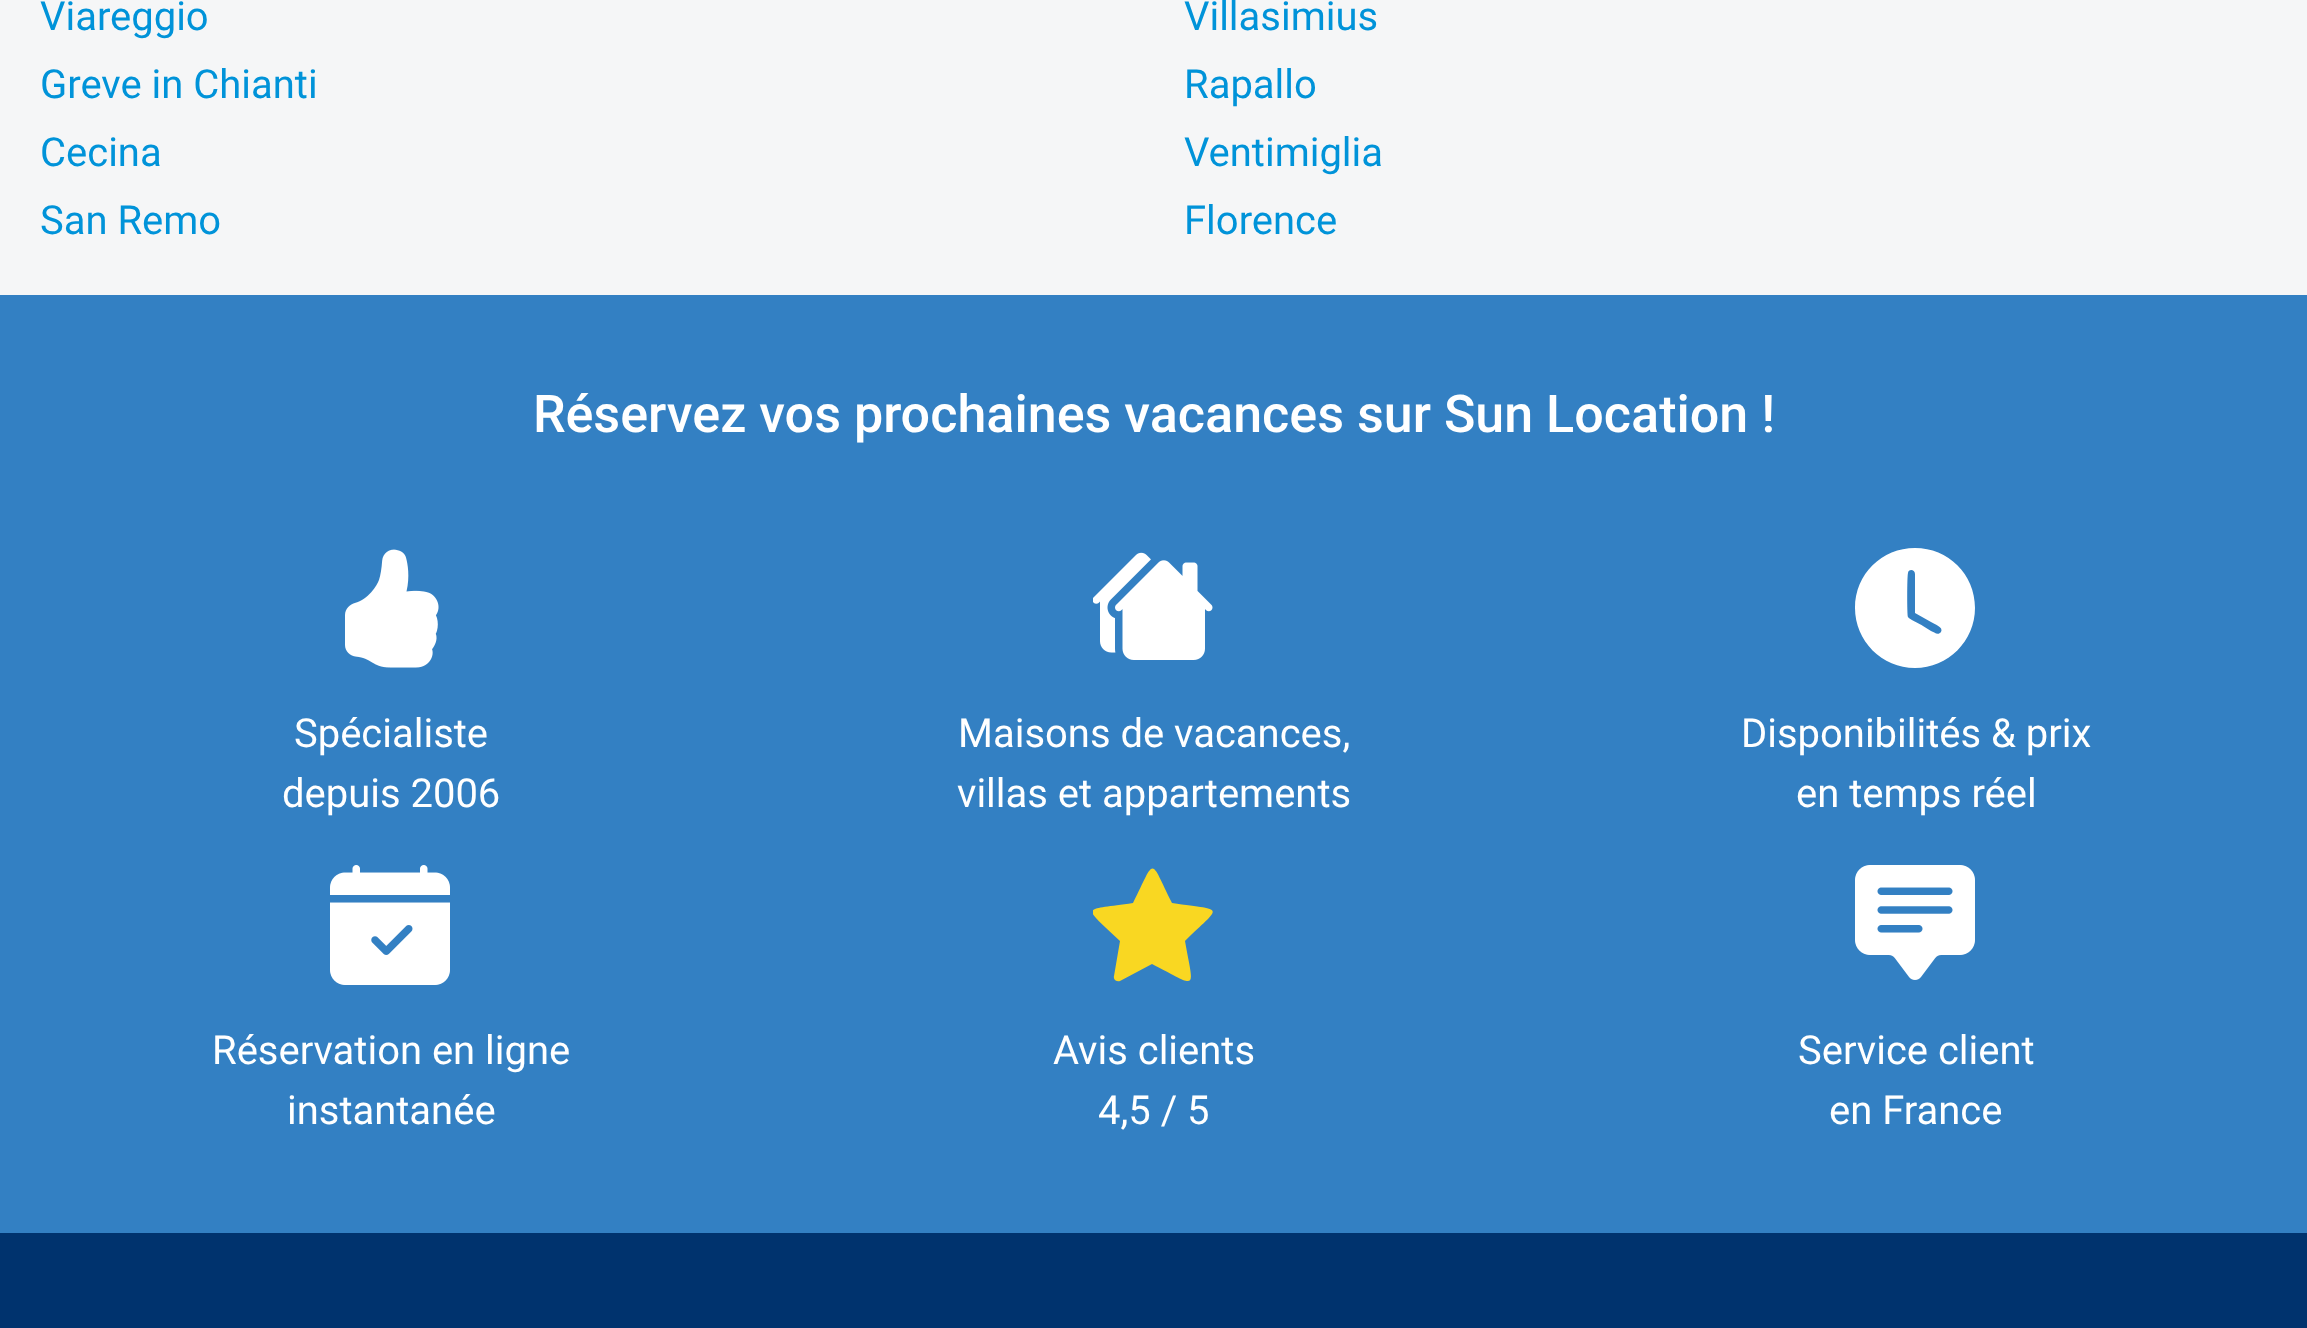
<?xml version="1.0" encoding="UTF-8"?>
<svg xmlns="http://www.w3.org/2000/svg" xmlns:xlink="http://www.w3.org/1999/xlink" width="2307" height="1328">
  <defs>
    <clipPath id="clip1"><rect x="1093" y="865" width="120" height="120" /></clipPath>
  </defs>
  <rect width="100%" height="100%" fill="#00336e" />
  <rect width="2307" height="295" fill="#f5f6f7" />
  <rect y="295" width="2307" height="938" fill="#3380c3" />
  <image x="345" y="549" width="94" height="119" xlink:href="image1.png" />
  <image x="1093" y="552" width="120" height="108" xlink:href="image2.png" />
  <path d="M 1975 608 c 0 33 -27 60 -60 60 c -33 0 -60 -27 -60 -60 c 0 -34 27 -60 60 -60 c 33 0 60 26 60 60 m -60 -34 c 0 -5 -7 -5 -7 -1 c -1 3 -1 42 0 44 c 1 2 12 7 15 9 l 8 5 c 3 1 7 5 10 1 c 3 -5 -7 -8 -10 -10 l -16 -9 z" fill="#ffffff" />
  <image x="330" y="865" width="120" height="120" xlink:href="image3.png" />
  <g clip-path="url(#clip1)">
    <path d="M 1120 981 c -3 1 -7 -1 -6 -5 l 6 -35 c -38 -37 -40 -30 13 -38 c 23 -46 16 -46 39 0 c 53 8 51 1 13 38 c 9 51 14 47 -33 23 z" fill="#f9d722" />
  </g>
  <image x="1855" y="865" width="120" height="115" xlink:href="image4.png" />
  <text x="40" y="30" style="font-family: Roboto; font-size: 40px; fill: #0093d9">Viareggio</text>
  <text x="1184" y="30" style="font-family: Roboto; font-size: 40px; fill: #0093d9">Villasimius</text>
  <text x="40" y="98" style="font-family: Roboto; font-size: 40px; fill: #0093d9">Greve in Chianti</text>
  <text x="1184" y="98" style="font-family: Roboto; font-size: 40px; fill: #0093d9">Rapallo</text>
  <text x="40" y="166" style="font-family: Roboto; font-size: 40px; fill: #0093d9">Cecina</text>
  <text x="1184" y="166" style="font-family: Roboto; font-size: 40px; fill: #0093d9">Ventimiglia</text>
  <text x="40" y="234" style="font-family: Roboto; font-size: 40px; fill: #0093d9">San Remo</text>
  <text x="1184" y="234" style="font-family: Roboto; font-size: 40px; fill: #0093d9">Florence</text>
  <text x="533" y="432" style="font-family: Roboto; font-size: 52px; font-weight: 500; fill: #ffffff">Réservez vos prochaines vacances sur Sun Location !</text>
  <text x="294" y="747" style="font-family: Roboto; font-size: 40px; fill: #ffffff">Spécialiste</text>
  <text x="282" y="807" style="font-family: Roboto; font-size: 40px; fill: #ffffff">depuis 2006</text>
  <text x="958" y="747" style="font-family: Roboto; font-size: 40px; fill: #ffffff">Maisons de vacances,</text>
  <text x="957" y="807" style="font-family: Roboto; font-size: 40px; fill: #ffffff">villas et appartements</text>
  <text x="1741" y="747" style="font-family: Roboto; font-size: 40px; fill: #ffffff">Disponibilités &amp; prix</text>
  <text x="1796" y="807" style="font-family: Roboto; font-size: 40px; fill: #ffffff">en temps réel</text>
  <text x="212" y="1064" style="font-family: Roboto; font-size: 40px; fill: #ffffff">Réservation en ligne</text>
  <text x="287" y="1124" style="font-family: Roboto; font-size: 40px; fill: #ffffff">instantanée</text>
  <text x="1053" y="1064" style="font-family: Roboto; font-size: 40px; fill: #ffffff">Avis clients</text>
  <text x="1098" y="1124" style="font-family: Roboto; font-size: 40px; fill: #ffffff">4,5 / 5</text>
  <text x="1798" y="1064" style="font-family: Roboto; font-size: 40px; fill: #ffffff">Service client</text>
  <text x="1829" y="1124" style="font-family: Roboto; font-size: 40px; fill: #ffffff">en France</text>
</svg>
